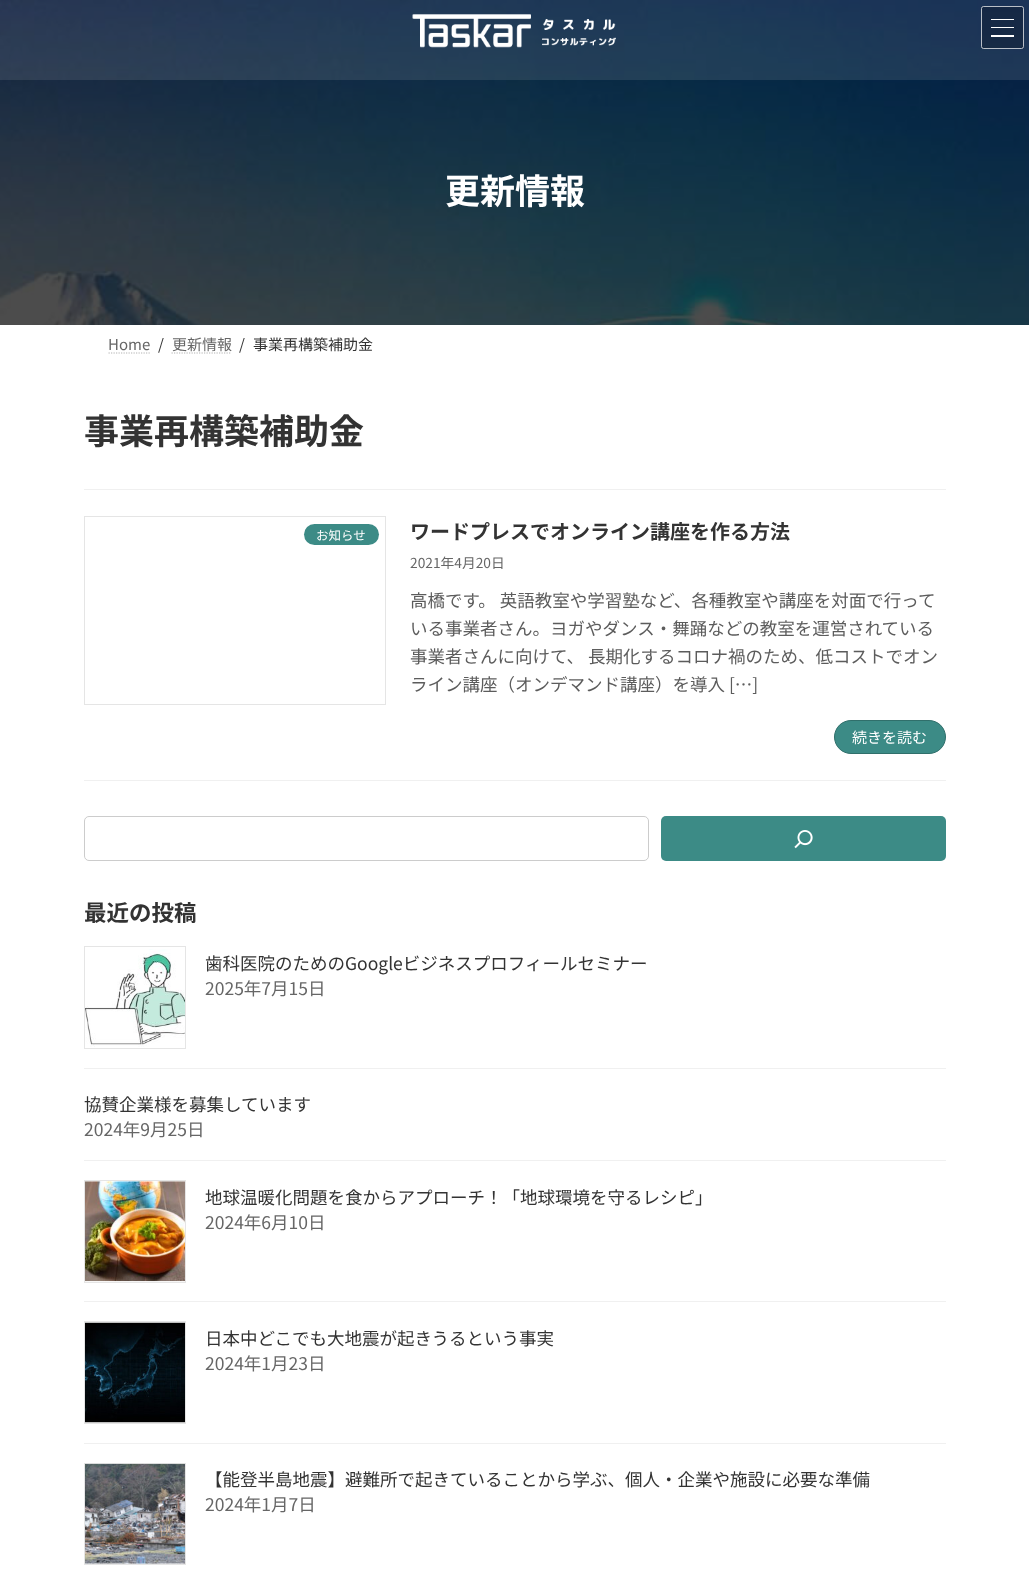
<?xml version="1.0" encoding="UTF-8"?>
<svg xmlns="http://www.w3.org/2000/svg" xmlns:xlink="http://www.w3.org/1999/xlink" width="1029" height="1576">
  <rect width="100%" height="100%" fill="#ffffff" />
  <image x="0" y="0" width="1029" height="325" xlink:href="image2.png" />
  <rect width="1029" height="80" fill="#ffffff" fill-opacity="0.1" />
  <image x="412" y="14" width="204" height="34" xlink:href="image1.png" />
  <rect x="981" y="6" width="43" height="43" rx="2.5" fill="#000000" fill-opacity="0.2" />
  <rect x="991" y="19" width="23" height="1" fill="#ffffff" />
  <rect x="991" y="27" width="23" height="1" fill="#ffffff" />
  <rect x="991" y="35" width="23" height="2" fill="#ffffff" />
  <rect x="981.5" y="6.5" width="42" height="42" rx="2" fill="none" stroke="#ffffff" stroke-opacity="0.7" />
  <path d="M 108.5 353 h 42" fill="none" stroke="#b3b3b3" stroke-width="1.2" stroke-dasharray="1.25 1.25" />
  <path d="M 171.5 353 h 60" fill="none" stroke="#b3b3b3" stroke-width="1.2" stroke-dasharray="1.25 1.25" />
  <rect x="84" y="489" width="862" height="1" fill="#f0f0f0" />
  <rect x="84" y="780" width="862" height="1" fill="#f0f0f0" />
  <rect x="84.5" y="516.5" width="301" height="188" fill="none" stroke="#e5e5e5" />
  <rect x="304" y="524" width="75" height="21" rx="10.5" fill="#3c8b86" />
  <rect x="834.5" y="720.5" width="111" height="33" rx="16.5" fill="#3c8b86" stroke="#306f6b" />
  <rect x="84.5" y="816.5" width="564" height="44" rx="4.5" fill="none" stroke="#cccccc" />
  <rect x="661" y="816" width="285" height="45" rx="5" fill="#3c8b86" />
  <image x="794" y="830" width="19" height="19" xlink:href="image3.png" />
  <rect x="84" y="1068" width="862" height="1" fill="#f0f0f0" />
  <rect x="84.5" y="946.5" width="101" height="102" fill="none" stroke="#e5e5e5" />
  <image x="85" y="949" width="100" height="98" xlink:href="image4.png" />
  <rect x="84" y="1160" width="862" height="1" fill="#f0f0f0" />
  <rect x="84" y="1301" width="862" height="1" fill="#f0f0f0" />
  <rect x="84.5" y="1180.5" width="101" height="102" fill="none" stroke="#e5e5e5" />
  <image x="85" y="1181" width="100" height="101" xlink:href="image5.png" />
  <rect x="84" y="1443" width="862" height="1" fill="#f0f0f0" />
  <rect x="84.5" y="1321.5" width="101" height="102" fill="none" stroke="#e5e5e5" />
  <image x="85" y="1322" width="100" height="101" xlink:href="image6.png" />
  <rect x="84.5" y="1463.5" width="101" height="101" fill="none" stroke="#e5e5e5" />
  <image x="85" y="1463" width="100" height="101" xlink:href="image7.png" />
  <text x="445" y="204" style="font-family: Noto Sans JP; font-size: 35px; font-weight: bold; fill: #ffffff">更新情報</text>
  <text x="108" y="350" style="font-family: Noto Sans JP; font-size: 15px; fill: #666666">Home</text>
  <text x="158" y="350" style="font-family: Noto Sans JP; font-size: 15px; fill: #333333">/</text>
  <text x="172" y="350" style="font-family: Noto Sans JP; font-size: 15px; fill: #666666">更新情報</text>
  <text x="239" y="350" style="font-family: Noto Sans JP; font-size: 15px; fill: #333333">/</text>
  <text x="253" y="350" style="font-family: Noto Sans JP; font-size: 15px; fill: #333333">事業再構築補助金</text>
  <text x="84" y="444" style="font-family: Noto Sans JP; font-size: 35px; font-weight: bold; fill: #333333">事業再構築補助金</text>
  <text x="316" y="540" style="font-family: Noto Sans JP; font-size: 12.5px; fill: #ffffff">お知らせ</text>
  <text x="410" y="539" style="font-family: Noto Sans JP; font-size: 20px; font-weight: bold; fill: #333333">ワードプレスでオンライン講座を作る方法</text>
  <text x="410" y="568" style="font-family: Noto Sans JP; font-size: 13.75px; fill: #666666">2021年4月20日</text>
  <text x="410" y="607" style="font-family: Noto Sans JP; font-size: 17.5px; fill: #5c5c5c">高橋です。 英語教室や学習塾など、各種教室や講座を対面で行って</text>
  <text x="410" y="635" style="font-family: Noto Sans JP; font-size: 17.5px; fill: #5c5c5c">いる事業者さん。ヨガやダンス・舞踊などの教室を運営されている</text>
  <text x="410" y="663" style="font-family: Noto Sans JP; font-size: 17.5px; fill: #5c5c5c">事業者さんに向けて、 長期化するコロナ禍のため、低コストでオン</text>
  <text x="410" y="691" style="font-family: Noto Sans JP; font-size: 17.5px; fill: #5c5c5c">ライン講座（オンデマンド講座）を導入 […]</text>
  <text x="852" y="743" style="font-family: Noto Sans JP; font-size: 15px; fill: #ffffff">続きを読む</text>
  <text x="84" y="921" style="font-family: Noto Sans JP; font-size: 22.5px; font-weight: bold; fill: #333333">最近の投稿</text>
  <text x="205" y="970" style="font-family: Noto Sans JP; font-size: 17.5px; fill: #333333">歯科医院のためのGoogleビジネスプロフィールセミナー</text>
  <text x="205" y="995" style="font-family: Noto Sans JP; font-size: 17.5px; fill: #666666">2025年7月15日</text>
  <text x="84" y="1111" style="font-family: Noto Sans JP; font-size: 17.5px; fill: #333333">協賛企業様を募集しています</text>
  <text x="84" y="1136" style="font-family: Noto Sans JP; font-size: 17.5px; fill: #666666">2024年9月25日</text>
  <text x="205" y="1204" style="font-family: Noto Sans JP; font-size: 17.5px; fill: #333333">地球温暖化問題を食からアプローチ！「地球環境を守るレシピ」</text>
  <text x="205" y="1229" style="font-family: Noto Sans JP; font-size: 17.5px; fill: #666666">2024年6月10日</text>
  <text x="205" y="1345" style="font-family: Noto Sans JP; font-size: 17.5px; fill: #333333">日本中どこでも大地震が起きうるという事実</text>
  <text x="205" y="1370" style="font-family: Noto Sans JP; font-size: 17.5px; fill: #666666">2024年1月23日</text>
  <text x="205" y="1486" style="font-family: Noto Sans JP; font-size: 17.5px; fill: #333333">【能登半島地震】避難所で起きていることから学ぶ、個人・企業や施設に必要な準備</text>
  <text x="205" y="1511" style="font-family: Noto Sans JP; font-size: 17.5px; fill: #666666">2024年1月7日</text>
</svg>
